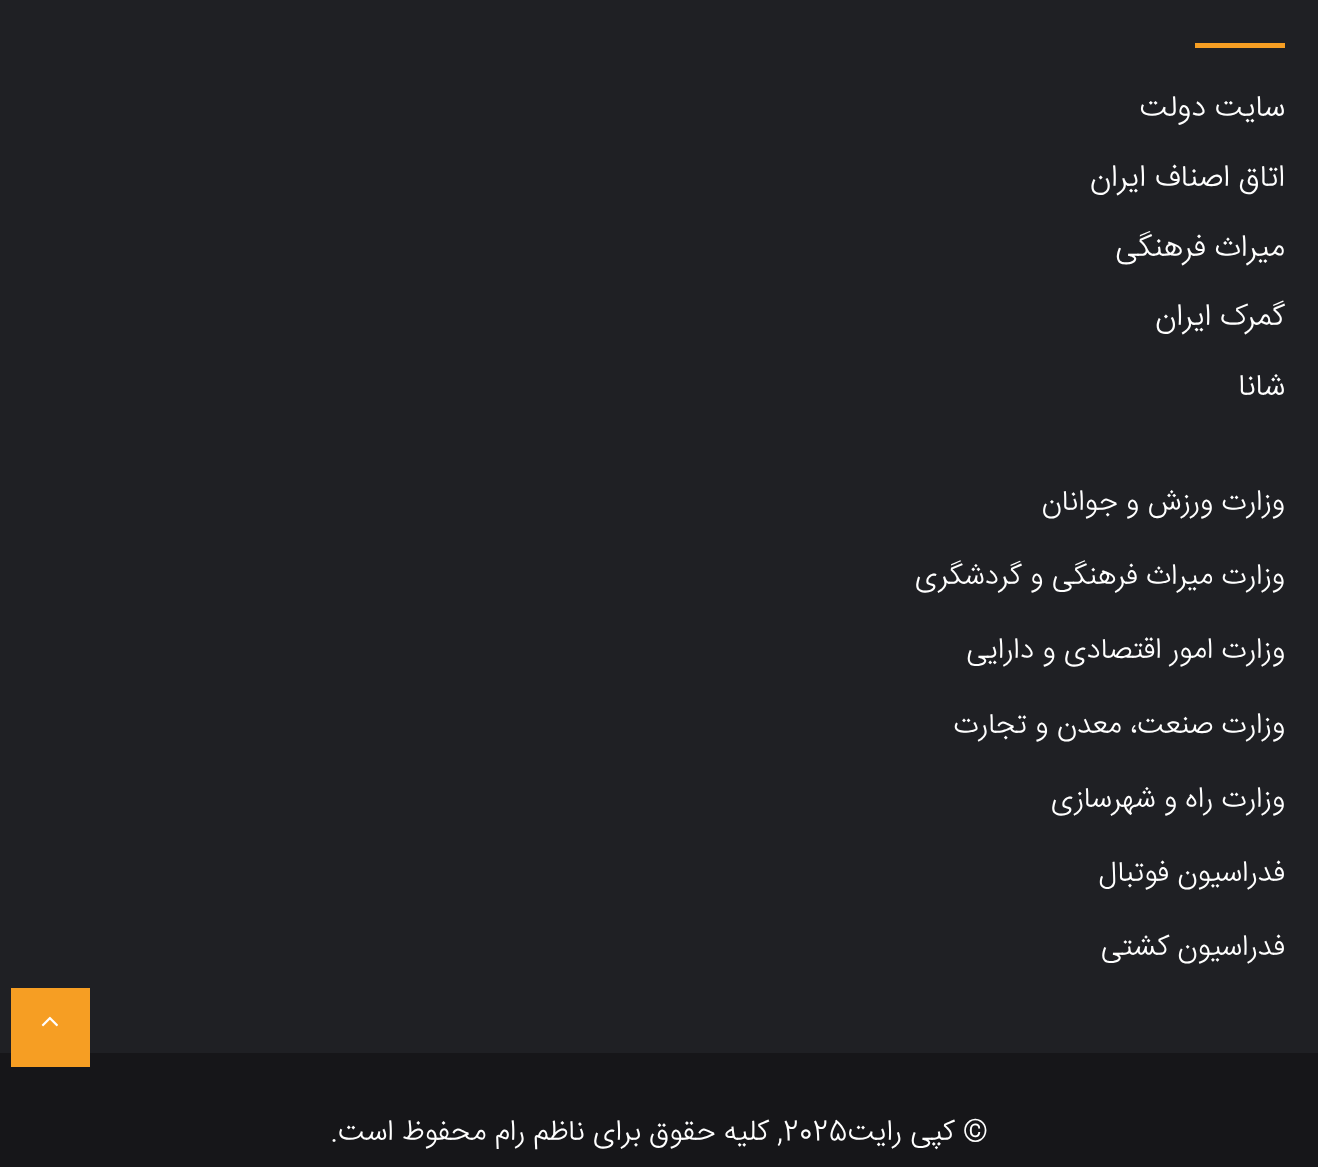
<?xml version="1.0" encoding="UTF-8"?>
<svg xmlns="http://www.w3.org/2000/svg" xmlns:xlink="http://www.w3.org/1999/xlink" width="1318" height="1167">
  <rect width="100%" height="100%" fill="#1f2024" />
  <rect x="1195" y="43" width="90" height="5" fill="#f69e23" />
  <rect y="1053" width="1318" height="114" fill="#161619" />
  <rect x="11" y="988" width="79" height="79" fill="#f69e23" />
  <image x="41" y="1016" width="17" height="11" xlink:href="image1.png" />
  <text x="1285" y="116" style="font-family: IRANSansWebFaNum; font-size: 30.75px; font-weight: 300; direction: rtl; fill: #ffffff">سایت دولت</text>
  <text x="1285" y="186" style="font-family: IRANSansWebFaNum; font-size: 30.75px; font-weight: 300; direction: rtl; fill: #ffffff">اتاق اصناف ایران</text>
  <text x="1285" y="256" style="font-family: IRANSansWebFaNum; font-size: 30.75px; font-weight: 300; direction: rtl; fill: #ffffff">میراث فرهنگی</text>
  <text x="1285" y="325" style="font-family: IRANSansWebFaNum; font-size: 30.75px; font-weight: 300; direction: rtl; fill: #ffffff">گمرک ایران</text>
  <text x="1285" y="395" style="font-family: IRANSansWebFaNum; font-size: 30.75px; font-weight: 300; direction: rtl; fill: #ffffff">شانا</text>
  <text x="1285" y="510" style="font-family: IRANSansWebFaNum; font-size: 29.25px; font-weight: 300; direction: rtl; fill: #ffffff">وزارت ورزش و جوانان</text>
  <text x="1285" y="584" style="font-family: IRANSansWebFaNum; font-size: 29.25px; font-weight: 300; direction: rtl; fill: #ffffff">وزارت میراث فرهنگی و گردشگری</text>
  <text x="1285" y="658" style="font-family: IRANSansWebFaNum; font-size: 29.25px; font-weight: 300; direction: rtl; fill: #ffffff">وزارت امور اقتصادی و دارایی</text>
  <text x="1285" y="733" style="font-family: IRANSansWebFaNum; font-size: 29.25px; font-weight: 300; direction: rtl; fill: #ffffff">وزارت صنعت، معدن و تجارت</text>
  <text x="1285" y="807" style="font-family: IRANSansWebFaNum; font-size: 29.25px; font-weight: 300; direction: rtl; fill: #ffffff">وزارت راه و شهرسازی</text>
  <text x="1285" y="881" style="font-family: IRANSansWebFaNum; font-size: 29.25px; font-weight: 300; direction: rtl; fill: #ffffff">فدراسیون فوتبال</text>
  <text x="1285" y="955" style="font-family: IRANSansWebFaNum; font-size: 29.25px; font-weight: 300; direction: rtl; fill: #ffffff">فدراسیون کشتی</text>
  <text x="988" y="1140" style="font-family: IRANSansWebFaNum; font-size: 29.25px; font-weight: 300; direction: rtl; fill: #ffffff">© کپی رایت</text>
  <text x="783" y="1140" style="font-family: IRANSansWebFaNum; font-size: 29.25px; font-weight: 300; fill: #ffffff">2025</text>
  <text x="783" y="1140" style="font-family: IRANSansWebFaNum; font-size: 29.25px; font-weight: 300; direction: rtl; fill: #ffffff">, کلیه حقوق برای ناظم رام محفوظ است.</text>
</svg>
